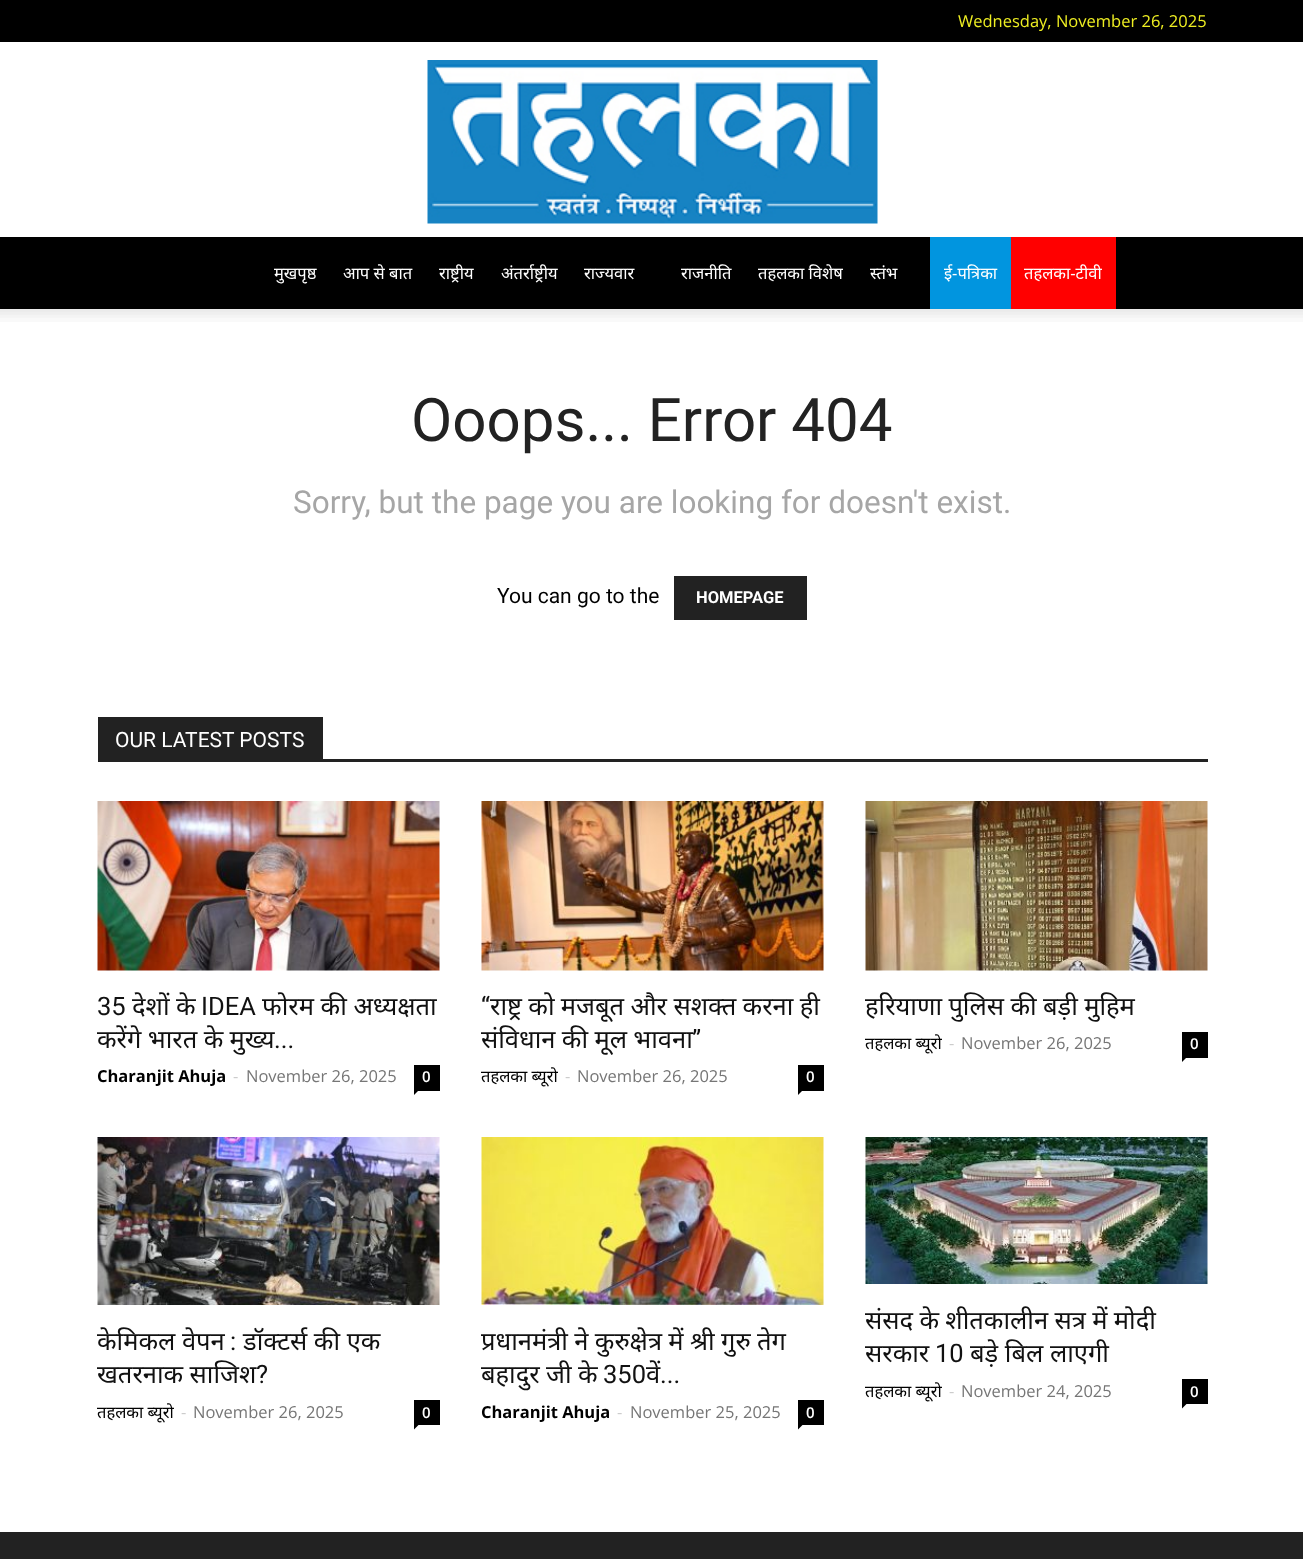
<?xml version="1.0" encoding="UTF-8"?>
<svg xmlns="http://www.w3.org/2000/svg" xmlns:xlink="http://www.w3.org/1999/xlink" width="1303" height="1559">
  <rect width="100%" height="100%" fill="#ffffff" />
  <rect width="1303" height="42" fill="#000000" />
  <image x="427" y="60" width="451" height="164" xlink:href="image1.png" />
  <rect y="237" width="1303" height="72" fill="#000000" />
  <rect x="930" y="237" width="81" height="72" fill="#0195df" />
  <rect x="1011" y="237" width="105" height="72" fill="#ff0000" />
  <image x="0" y="309" width="1303" height="13" xlink:href="image2.png" />
  <rect x="674" y="576" width="133" height="44" fill="#222222" />
  <rect x="98" y="759" width="1110" height="3" fill="#222222" />
  <rect x="98" y="717" width="225" height="42" fill="#222222" />
  <image x="97" y="801" width="343" height="170" xlink:href="image3.png" />
  <rect x="414" y="1065" width="26" height="26" fill="#000000" />
  <path d="M 414 1090.5 h 4.5 l -4.5 4.5 z" fill="#000000" />
  <image x="481" y="801" width="343" height="170" xlink:href="image4.png" />
  <rect x="798" y="1065" width="26" height="26" fill="#000000" />
  <path d="M 798 1090.5 h 4.5 l -4.5 4.5 z" fill="#000000" />
  <image x="865" y="801" width="343" height="170" xlink:href="image5.png" />
  <rect x="1182" y="1032" width="26" height="26" fill="#000000" />
  <path d="M 1182 1057.5 h 4.5 l -4.5 4.5 z" fill="#000000" />
  <image x="97" y="1137" width="343" height="168" xlink:href="image6.png" />
  <rect x="414" y="1400" width="26" height="25" fill="#000000" />
  <path d="M 414 1425 h 4.5 l -4.5 4.5 z" fill="#000000" />
  <image x="481" y="1137" width="343" height="168" xlink:href="image7.png" />
  <rect x="798" y="1400" width="26" height="25" fill="#000000" />
  <path d="M 798 1425 h 4.5 l -4.5 4.5 z" fill="#000000" />
  <image x="865" y="1137" width="343" height="147" xlink:href="image8.png" />
  <rect x="1182" y="1379" width="26" height="25" fill="#000000" />
  <path d="M 1182 1404 h 4.5 l -4.5 4.5 z" fill="#000000" />
  <rect y="1532" width="1303" height="27" fill="#222222" />
  <text x="958" y="27" style="font-family: Open Sans; font-size: 16.5px; fill: #eeee22">Wednesday, November 26, 2025</text>
  <text x="274" y="279" style="font-family: Noto Sans; font-size: 16.5px; fill: #ffffff">मुखपृष्ठ</text>
  <text x="343" y="279" style="font-family: Noto Sans; font-size: 16.5px; fill: #ffffff">आप से बात</text>
  <text x="439" y="279" style="font-family: Noto Sans; font-size: 16.5px; fill: #ffffff">राष्ट्रीय</text>
  <text x="501" y="279" style="font-family: Noto Sans; font-size: 16.5px; fill: #ffffff">अंतर्राष्ट्रीय</text>
  <text x="584" y="279" style="font-family: Noto Sans; font-size: 16.5px; fill: #ffffff">राज्यवार</text>
  <text x="681" y="279" style="font-family: Noto Sans; font-size: 16.5px; fill: #ffffff">राजनीति</text>
  <text x="758" y="279" style="font-family: Noto Sans; font-size: 16.5px; fill: #ffffff">तहलका विशेष</text>
  <text x="870" y="279" style="font-family: Noto Sans; font-size: 16.5px; fill: #ffffff">स्तंभ</text>
  <text x="944" y="279" style="font-family: Noto Sans; font-size: 16.5px; fill: #ffffff">ई-पत्रिका</text>
  <text x="1024" y="279" style="font-family: Noto Sans; font-size: 16.5px; fill: #ffffff">तहलका-टीवी</text>
  <text x="411" y="441" style="font-family: Roboto; font-size: 60px; fill: #222222">Ooops... Error 404</text>
  <text x="293" y="513" style="font-family: Roboto; font-size: 31.5px; fill: #a6a6a6">Sorry, but the page you are looking for doesn't exist.</text>
  <text x="497" y="603" style="font-family: Roboto; font-size: 21px; fill: #000000">You can go to the</text>
  <text x="696" y="603" style="font-family: Roboto; font-size: 16.5px; font-weight: bold; fill: #ffffff">HOMEPAGE</text>
  <text x="115" y="747" style="font-family: Roboto; font-size: 21px; fill: #ffffff">OUR LATEST POSTS</text>
  <text x="97" y="1015" style="font-family: Roboto; font-size: 25.5px; fill: #111111">35</text>
  <text x="132" y="1015" style="font-family: Noto Sans; font-size: 25.5px; fill: #111111">देशों के</text>
  <text x="201" y="1015" style="font-family: Roboto; font-size: 25.5px; fill: #111111">IDEA</text>
  <text x="262" y="1015" style="font-family: Noto Sans; font-size: 25.5px; fill: #111111">फोरम की अध्यक्षता</text>
  <text x="97" y="1048" word-spacing="-0.25" style="font-family: Noto Sans; font-size: 25.5px; fill: #111111">करेंगे भारत के मुख्य</text>
  <text x="274" y="1048" style="font-family: Roboto; font-size: 25.5px; fill: #111111">...</text>
  <text x="97" y="1082" style="font-family: Open Sans; font-size: 16.5px; font-weight: bold; fill: #000000">Charanjit Ahuja</text>
  <text x="233" y="1082" style="font-family: Open Sans; font-size: 16.5px; fill: #cccccc">-</text>
  <text x="246" y="1082" style="font-family: Open Sans; font-size: 16.5px; fill: #767676">November 26, 2025</text>
  <text x="422" y="1082" style="font-family: Open Sans; font-size: 15px; font-weight: 600; fill: #ffffff">0</text>
  <text x="481" y="1015" style="font-family: Roboto; font-size: 25.5px; fill: #111111">“</text>
  <text x="490" y="1015" word-spacing="-0.25" style="font-family: Noto Sans; font-size: 25.5px; fill: #111111">राष्ट्र को मजबूत और सशक्त करना ही</text>
  <text x="481" y="1048" word-spacing="-0.25" style="font-family: Noto Sans; font-size: 25.5px; fill: #111111">संविधान की मूल भावना</text>
  <text x="692" y="1048" style="font-family: Roboto; font-size: 25.5px; fill: #111111">”</text>
  <text x="481" y="1082" style="font-family: Noto Sans; font-size: 16.5px; fill: #000000">तहलका ब्यूरो</text>
  <text x="565" y="1082" style="font-family: Open Sans; font-size: 16.5px; fill: #cccccc">-</text>
  <text x="577" y="1082" style="font-family: Open Sans; font-size: 16.5px; fill: #767676">November 26, 2025</text>
  <text x="806" y="1082" style="font-family: Open Sans; font-size: 15px; font-weight: 600; fill: #ffffff">0</text>
  <text x="865" y="1015" word-spacing="-0.25" style="font-family: Noto Sans; font-size: 25.5px; fill: #111111">हरियाणा पुलिस की बड़ी मुहिम</text>
  <text x="865" y="1049" style="font-family: Noto Sans; font-size: 16.5px; fill: #000000">तहलका ब्यूरो</text>
  <text x="949" y="1049" style="font-family: Open Sans; font-size: 16.5px; fill: #cccccc">-</text>
  <text x="961" y="1049" style="font-family: Open Sans; font-size: 16.5px; fill: #767676">November 26, 2025</text>
  <text x="1190" y="1049" style="font-family: Open Sans; font-size: 15px; font-weight: 600; fill: #ffffff">0</text>
  <text x="97" y="1350" style="font-family: Noto Sans; font-size: 25.5px; fill: #111111">केमिकल वेपन</text>
  <text x="230" y="1350" style="font-family: Roboto; font-size: 25.5px; fill: #111111">:</text>
  <text x="243" y="1350" style="font-family: Noto Sans; font-size: 25.5px; fill: #111111">डॉक्टर्स की एक</text>
  <text x="97" y="1383" word-spacing="-0.25" style="font-family: Noto Sans; font-size: 25.5px; fill: #111111">खतरनाक साजिश</text>
  <text x="256" y="1383" style="font-family: Roboto; font-size: 25.5px; fill: #111111">?</text>
  <text x="97" y="1418" style="font-family: Noto Sans; font-size: 16.5px; fill: #000000">तहलका ब्यूरो</text>
  <text x="181" y="1418" style="font-family: Open Sans; font-size: 16.5px; fill: #cccccc">-</text>
  <text x="193" y="1418" style="font-family: Open Sans; font-size: 16.5px; fill: #767676">November 26, 2025</text>
  <text x="422" y="1418" style="font-family: Open Sans; font-size: 15px; font-weight: 600; fill: #ffffff">0</text>
  <text x="481" y="1350" word-spacing="-0.25" style="font-family: Noto Sans; font-size: 25.5px; fill: #111111">प्रधानमंत्री ने कुरुक्षेत्र में श्री गुरु तेग</text>
  <text x="481" y="1383" word-spacing="-0.25" style="font-family: Noto Sans; font-size: 25.5px; fill: #111111">बहादुर जी के</text>
  <text x="603" y="1383" style="font-family: Roboto; font-size: 25.5px; fill: #111111">350</text>
  <text x="646" y="1383" style="font-family: Noto Sans; font-size: 25.5px; fill: #111111">वें</text>
  <text x="660" y="1383" style="font-family: Roboto; font-size: 25.5px; fill: #111111">...</text>
  <text x="481" y="1418" style="font-family: Open Sans; font-size: 16.5px; font-weight: bold; fill: #000000">Charanjit Ahuja</text>
  <text x="617" y="1418" style="font-family: Open Sans; font-size: 16.5px; fill: #cccccc">-</text>
  <text x="630" y="1418" style="font-family: Open Sans; font-size: 16.5px; fill: #767676">November 25, 2025</text>
  <text x="806" y="1418" style="font-family: Open Sans; font-size: 15px; font-weight: 600; fill: #ffffff">0</text>
  <text x="865" y="1329" word-spacing="-0.25" style="font-family: Noto Sans; font-size: 25.5px; fill: #111111">संसद के शीतकालीन सत्र में मोदी</text>
  <text x="865" y="1362" style="font-family: Noto Sans; font-size: 25.5px; fill: #111111">सरकार</text>
  <text x="935" y="1362" style="font-family: Roboto; font-size: 25.5px; fill: #111111">10</text>
  <text x="970" y="1362" style="font-family: Noto Sans; font-size: 25.5px; fill: #111111">बड़े बिल लाएगी</text>
  <text x="865" y="1397" style="font-family: Noto Sans; font-size: 16.5px; fill: #000000">तहलका ब्यूरो</text>
  <text x="949" y="1397" style="font-family: Open Sans; font-size: 16.5px; fill: #cccccc">-</text>
  <text x="961" y="1397" style="font-family: Open Sans; font-size: 16.5px; fill: #767676">November 24, 2025</text>
  <text x="1190" y="1397" style="font-family: Open Sans; font-size: 15px; font-weight: 600; fill: #ffffff">0</text>
</svg>
